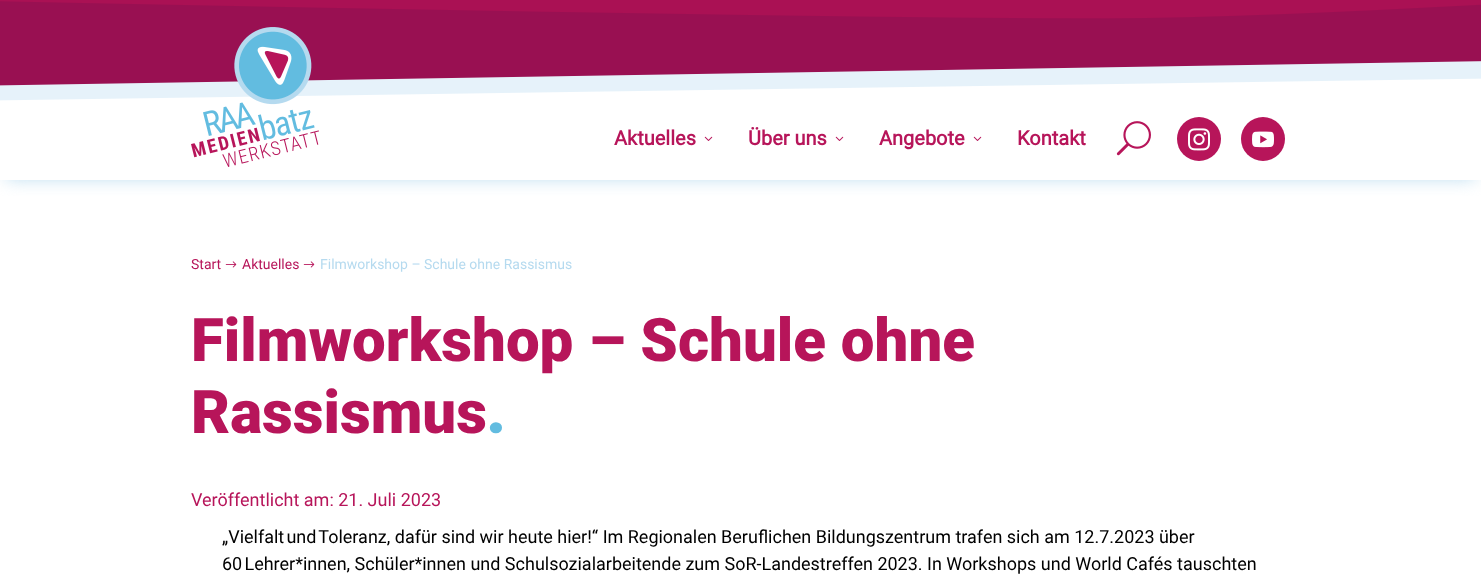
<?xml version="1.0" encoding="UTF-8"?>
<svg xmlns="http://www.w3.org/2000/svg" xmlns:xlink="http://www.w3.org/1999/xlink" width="1481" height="584">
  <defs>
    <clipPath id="clip1"><rect x="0" y="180" width="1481" height="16" /></clipPath>
  </defs>
  <rect width="100%" height="100%" fill="#ffffff" />
  <g clip-path="url(#clip1)">
    <rect x="6" y="10" width="1469" height="168" fill="#b5daef" filter="blur(9px)" />
  </g>
  <image x="0" y="0" width="1481" height="101" xlink:href="image1.png" />
  <image x="191" y="27" width="128" height="140" xlink:href="image2.png" />
  <image x="704" y="136" width="9" height="5" xlink:href="image3.png" />
  <image x="835" y="136" width="9" height="5" xlink:href="image3.png" />
  <image x="973" y="136" width="9" height="5" xlink:href="image3.png" />
  <image x="1116" y="121" width="35" height="35" xlink:href="image4.png" />
  <circle cx="1199" cy="139" r="22" fill="#b7155a" />
  <image x="1188" y="128" width="22" height="23" xlink:href="image5.png" />
  <circle cx="1263" cy="139" r="22" fill="#b7155a" />
  <image x="1252" y="131" width="22" height="17" xlink:href="image6.png" />
  <image x="225" y="261" width="12" height="7" xlink:href="image7.png" />
  <image x="303" y="261" width="12" height="7" xlink:href="image7.png" />
  <text x="614" y="145" style="font-family: Roboto; font-size: 20px; font-weight: bold; fill: #b7155a">Aktuelles</text>
  <text x="748" y="145" style="font-family: Roboto; font-size: 20px; font-weight: bold; fill: #b7155a">Über uns</text>
  <text x="879" y="145" style="font-family: Roboto; font-size: 20px; font-weight: bold; fill: #b7155a">Angebote</text>
  <text x="1017" y="145" style="font-family: Roboto; font-size: 20px; font-weight: bold; fill: #b7155a">Kontakt</text>
  <text x="191" y="269" style="font-family: Roboto; font-size: 14px; fill: #b7155a">Start</text>
  <text x="242" y="269" style="font-family: Roboto; font-size: 14px; fill: #b7155a">Aktuelles</text>
  <text x="320" y="269" style="font-family: Roboto; font-size: 14px; fill: #b5daef">Filmworkshop – Schule ohne Rassismus</text>
  <text x="191" y="361" style="font-family: Roboto; font-size: 60px; font-weight: 900; fill: #b7155a">Filmworkshop – Schule ohne</text>
  <text x="191" y="433" style="font-family: Roboto; font-size: 60px; font-weight: 900; fill: #b7155a">Rassismus</text>
  <text x="486" y="433" style="font-family: Roboto; font-size: 67px; font-weight: 900; fill: #62bce0">.</text>
  <text x="191" y="506" style="font-family: Roboto; font-size: 18px; fill: #b7155a">Veröffentlicht am: 21. Juli 2023</text>
  <text x="222" y="543" style="font-family: Roboto; font-size: 18px; fill: #000000">„Vielfalt und Toleranz, dafür sind wir heute hier!“ Im Regionalen Beruflichen Bildungszentrum trafen sich am 12.7.2023 über</text>
  <text x="222" y="570" style="font-family: Roboto; font-size: 18px; fill: #000000">60 Lehrer*innen, Schüler*innen und Schulsozialarbeitende zum SoR-Landestreffen 2023. In Workshops und World Cafés tauschten</text>
</svg>
